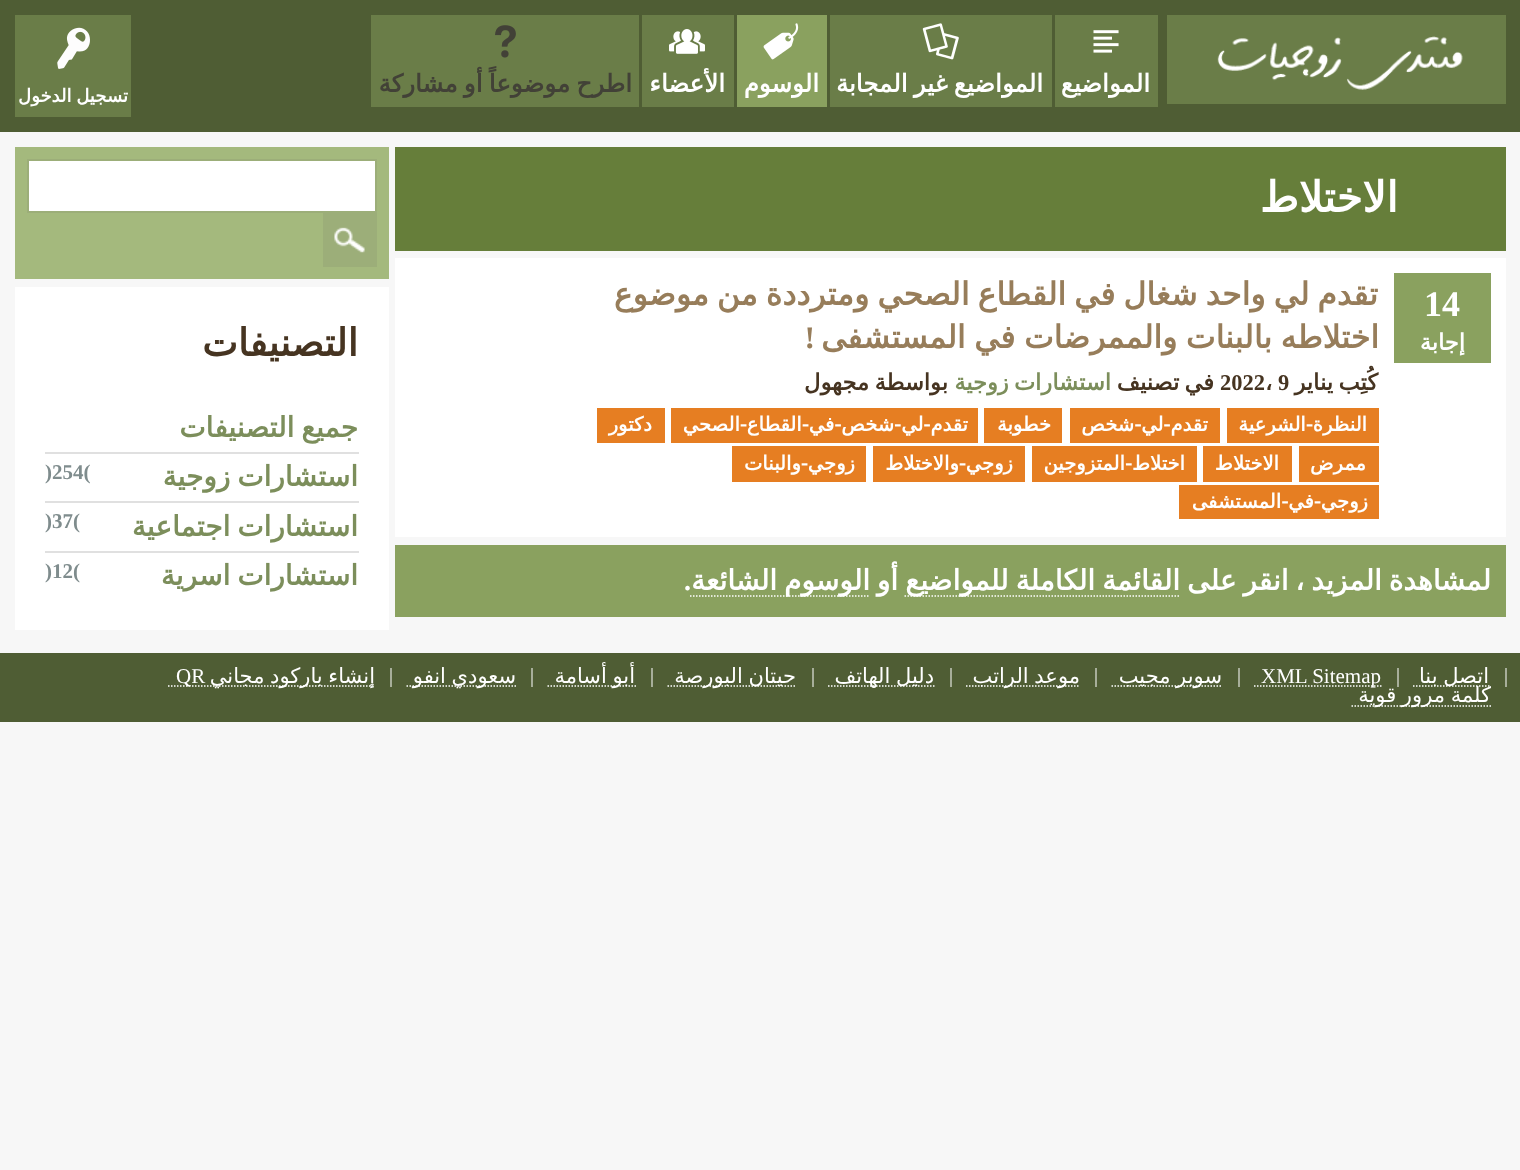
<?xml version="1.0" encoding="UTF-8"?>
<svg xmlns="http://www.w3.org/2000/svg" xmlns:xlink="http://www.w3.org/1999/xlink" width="1520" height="1170">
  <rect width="100%" height="100%" fill="#f7f7f7" />
  <rect width="1520" height="132" fill="#4f5d34" />
  <rect x="1167" y="15" width="339" height="89" fill="#6a7d48" />
  <image x="1217" y="36" width="246" height="54" xlink:href="image1.png" />
  <rect x="1055" y="15" width="103" height="92" fill="#6a7d48" />
  <image x="1093" y="30" width="26" height="23" xlink:href="image2.png" />
  <rect x="830" y="15" width="222" height="92" fill="#6a7d48" />
  <image x="922" y="23" width="37" height="37" xlink:href="image3.png" />
  <rect x="737" y="15" width="90" height="92" fill="#8aa15f" />
  <image x="763" y="23" width="36" height="37" xlink:href="image4.png" />
  <rect x="642" y="15" width="92" height="92" fill="#6a7d48" />
  <image x="669" y="29" width="36" height="25" xlink:href="image5.png" />
  <rect x="371" y="15" width="268" height="92" fill="#6a7d48" />
  <image x="495" y="25" width="21" height="33" xlink:href="image6.png" />
  <rect x="15" y="15" width="116" height="102" fill="#6a7d48" />
  <image x="57" y="27" width="33" height="42" xlink:href="image7.png" />
  <rect x="395" y="147" width="1111" height="104" fill="#667e3a" />
  <rect x="395" y="258" width="1111" height="279" fill="#ffffff" />
  <rect x="1394" y="273" width="97" height="90" fill="#8aa15f" />
  <rect x="1227" y="408" width="152" height="35" fill="#e67e22" />
  <rect x="1070" y="408" width="150" height="35" fill="#e67e22" />
  <rect x="984" y="408" width="78" height="35" fill="#e67e22" />
  <rect x="671" y="408" width="307" height="35" fill="#e67e22" />
  <rect x="597" y="408" width="68" height="35" fill="#e67e22" />
  <rect x="1299" y="446" width="80" height="36" fill="#e67e22" />
  <rect x="1203" y="446" width="89" height="36" fill="#e67e22" />
  <rect x="1032" y="446" width="165" height="36" fill="#e67e22" />
  <rect x="873" y="446" width="152" height="36" fill="#e67e22" />
  <rect x="732" y="446" width="134" height="36" fill="#e67e22" />
  <rect x="1179" y="485" width="200" height="34" fill="#e67e22" />
  <rect x="395" y="545" width="1111" height="72" fill="#8aa15f" />
  <path d="M 904.5 596 h 276" fill="none" stroke="#ffffff" stroke-width="1.5" stroke-dasharray="1.5 1.5" />
  <path d="M 690 596 h 180" fill="none" stroke="#ffffff" stroke-width="1.5" stroke-dasharray="1.5 1.5" />
  <rect x="15" y="147" width="374" height="132" fill="#a4b97d" />
  <rect x="28" y="160" width="348" height="52" fill="#ffffff" stroke="#9cae79" stroke-width="2" />
  <rect x="323" y="213" width="54" height="54" fill="#9cae79" />
  <image x="334" y="227" width="31" height="26" xlink:href="image8.png" />
  <rect x="15" y="287" width="374" height="343" fill="#ffffff" />
  <rect x="45" y="452" width="314" height="2" fill="#e0e0e0" />
  <rect x="45" y="501" width="314" height="2" fill="#e0e0e0" />
  <rect x="45" y="551" width="314" height="2" fill="#e0e0e0" />
  <rect y="653" width="1520" height="69" fill="#4f5d34" />
  <rect x="1505" y="668" width="2" height="19" fill="#a7ae9a" />
  <path d="M 1413 686 h 76.5" fill="none" stroke="#ffffff" stroke-width="1.5" stroke-dasharray="1.5 1.5" />
  <rect x="1397" y="668" width="2" height="19" fill="#a7ae9a" />
  <path d="M 1254 686 h 127.5" fill="none" stroke="#ffffff" stroke-width="1.5" stroke-dasharray="1.5 1.5" />
  <rect x="1238" y="668" width="2" height="19" fill="#a7ae9a" />
  <path d="M 1111.5 686 h 111" fill="none" stroke="#ffffff" stroke-width="1.5" stroke-dasharray="1.5 1.5" />
  <rect x="1095" y="668" width="2" height="19" fill="#a7ae9a" />
  <path d="M 966 686 h 114" fill="none" stroke="#ffffff" stroke-width="1.5" stroke-dasharray="1.5 1.5" />
  <rect x="950" y="668" width="2" height="19" fill="#a7ae9a" />
  <path d="M 828 686 h 106.5" fill="none" stroke="#ffffff" stroke-width="1.5" stroke-dasharray="1.5 1.5" />
  <rect x="812" y="668" width="2" height="19" fill="#a7ae9a" />
  <path d="M 667.5 686 h 129" fill="none" stroke="#ffffff" stroke-width="1.5" stroke-dasharray="1.5 1.5" />
  <rect x="651" y="668" width="2" height="19" fill="#a7ae9a" />
  <path d="M 547.5 686 h 88.5" fill="none" stroke="#ffffff" stroke-width="1.5" stroke-dasharray="1.5 1.5" />
  <rect x="531" y="668" width="2" height="19" fill="#a7ae9a" />
  <path d="M 406.5 686 h 109.5" fill="none" stroke="#ffffff" stroke-width="1.5" stroke-dasharray="1.5 1.5" />
  <rect x="390" y="668" width="2" height="19" fill="#a7ae9a" />
  <path d="M 168 686 h 207" fill="none" stroke="#ffffff" stroke-width="1.5" stroke-dasharray="1.5 1.5" />
  <path d="M 1351.5 706 h 139.5" fill="none" stroke="#ffffff" stroke-width="1.5" stroke-dasharray="1.5 1.5" />
  <text x="1150" y="92" style="font-family: DejaVu Sans; font-size: 24.5px; font-weight: bold; direction: rtl; fill: #ffffff">المواضيع</text>
  <text x="1043" y="92" word-spacing="-1.5" style="font-family: DejaVu Sans; font-size: 24.5px; font-weight: bold; direction: rtl; fill: #ffffff">المواضيع غير المجابة</text>
  <text x="819" y="92" style="font-family: DejaVu Sans; font-size: 24.5px; font-weight: bold; direction: rtl; fill: #ffffff">الوسوم</text>
  <text x="725" y="92" style="font-family: DejaVu Sans; font-size: 24.5px; font-weight: bold; direction: rtl; fill: #ffffff">الأعضاء</text>
  <text x="632" y="92" word-spacing="-1.5" style="font-family: DejaVu Sans; font-size: 24.5px; font-weight: bold; direction: rtl; fill: #424137">اطرح موضوعاً أو مشاركة</text>
  <text x="128" y="102" word-spacing="-1" style="font-family: DejaVu Sans; font-size: 18px; font-weight: bold; direction: rtl; fill: #ffffff">تسجيل الدخول</text>
  <text x="1398" y="212" style="font-family: DejaVu Sans; font-size: 42px; font-weight: bold; direction: rtl; fill: #ffffff">الاختلاط</text>
  <text x="1424" y="316" style="font-family: Liberation Serif; font-size: 36px; font-weight: bold; fill: #ffffff">14</text>
  <text x="1465" y="350" style="font-family: DejaVu Sans; font-size: 22.5px; font-weight: bold; direction: rtl; fill: #ffffff">إجابة</text>
  <text x="1378" y="305" word-spacing="-2" style="font-family: DejaVu Sans; font-size: 31.5px; font-weight: bold; direction: rtl; fill: #977d5a">تقدم لي واحد شغال في القطاع الصحي ومترددة من موضوع</text>
  <text x="1379" y="348" word-spacing="-1.5" style="font-family: DejaVu Sans; font-size: 31.5px; font-weight: bold; direction: rtl; fill: #977d5a">اختلاطه بالبنات والممرضات في المستشفى</text>
  <text x="815" y="348" style="font-family: Liberation Serif; font-size: 31.5px; font-weight: bold; direction: rtl; fill: #977d5a">!</text>
  <text x="1378" y="390" style="font-family: DejaVu Sans; font-size: 22.5px; font-weight: bold; direction: rtl; fill: #463421">كُتِب</text>
  <text x="1333" y="390" style="font-family: DejaVu Sans; font-size: 22.5px; font-weight: bold; direction: rtl; fill: #463421">يناير</text>
  <text x="1278" y="390" style="font-family: Liberation Serif; font-size: 22.5px; font-weight: bold; fill: #463421">9</text>
  <text x="1265" y="390" style="font-family: DejaVu Sans; font-size: 22.5px; font-weight: bold; fill: #463421">،</text>
  <text x="1220" y="390" style="font-family: Liberation Serif; font-size: 22.5px; font-weight: bold; fill: #463421">2022</text>
  <text x="1214" y="390" word-spacing="-2" style="font-family: DejaVu Sans; font-size: 22.5px; font-weight: bold; direction: rtl; fill: #463421">في تصنيف</text>
  <text x="1111" y="390" word-spacing="-2" style="font-family: DejaVu Sans; font-size: 22.5px; font-weight: bold; direction: rtl; fill: #7c8e5b">استشارات زوجية</text>
  <text x="948" y="390" style="font-family: DejaVu Sans; font-size: 22.5px; font-weight: bold; direction: rtl; fill: #463421">بواسطة</text>
  <text x="869" y="390" style="font-family: DejaVu Sans; font-size: 22.5px; font-weight: bold; direction: rtl; fill: #463421">مجهول</text>
  <text x="1367" y="431" style="font-family: DejaVu Sans; font-size: 19.5px; font-weight: bold; direction: rtl; fill: #ffffff">النظرة-الشرعية</text>
  <text x="1208" y="431" style="font-family: DejaVu Sans; font-size: 19.5px; font-weight: bold; direction: rtl; fill: #ffffff">تقدم-لي-شخص</text>
  <text x="1051" y="431" style="font-family: DejaVu Sans; font-size: 19.5px; font-weight: bold; direction: rtl; fill: #ffffff">خطوبة</text>
  <text x="968" y="431" style="font-family: DejaVu Sans; font-size: 19.5px; font-weight: bold; direction: rtl; fill: #ffffff">تقدم-لي-شخص-في-القطاع-الصحي</text>
  <text x="652" y="431" style="font-family: DejaVu Sans; font-size: 19.5px; font-weight: bold; direction: rtl; fill: #ffffff">دكتور</text>
  <text x="1366" y="470" style="font-family: DejaVu Sans; font-size: 19.5px; font-weight: bold; direction: rtl; fill: #ffffff">ممرض</text>
  <text x="1279" y="470" style="font-family: DejaVu Sans; font-size: 19.5px; font-weight: bold; direction: rtl; fill: #ffffff">الاختلاط</text>
  <text x="1185" y="470" style="font-family: DejaVu Sans; font-size: 19.5px; font-weight: bold; direction: rtl; fill: #ffffff">اختلاط-المتزوجين</text>
  <text x="1013" y="470" style="font-family: DejaVu Sans; font-size: 19.5px; font-weight: bold; direction: rtl; fill: #ffffff">زوجي-والاختلاط</text>
  <text x="855" y="470" style="font-family: DejaVu Sans; font-size: 19.5px; font-weight: bold; direction: rtl; fill: #ffffff">زوجي-والبنات</text>
  <text x="1368" y="508" style="font-family: DejaVu Sans; font-size: 19.5px; font-weight: bold; direction: rtl; fill: #ffffff">زوجي-في-المستشفى</text>
  <text x="1491" y="590" word-spacing="-2" style="font-family: DejaVu Sans; font-size: 28px; font-weight: bold; direction: rtl; fill: #ffffff">لمشاهدة المزيد ، انقر على</text>
  <text x="1180" y="590" word-spacing="-2" style="font-family: DejaVu Sans; font-size: 28px; font-weight: bold; direction: rtl; fill: #ffffff">القائمة الكاملة للمواضيع</text>
  <text x="898" y="590" style="font-family: DejaVu Sans; font-size: 28px; font-weight: bold; direction: rtl; fill: #ffffff">أو</text>
  <text x="870" y="590" word-spacing="-2" style="font-family: DejaVu Sans; font-size: 28px; font-weight: bold; direction: rtl; fill: #ffffff">الوسوم الشائعة</text>
  <text x="684" y="590" style="font-family: Liberation Serif; font-size: 28px; font-weight: bold; fill: #ffffff">.</text>
  <text x="358" y="356" style="font-family: DejaVu Sans; font-size: 38px; font-weight: bold; direction: rtl; fill: #463421">التصنيفات</text>
  <text x="358" y="437" word-spacing="-2" style="font-family: DejaVu Sans; font-size: 28px; font-weight: bold; direction: rtl; fill: #7c8e5b">جميع التصنيفات</text>
  <text x="358" y="486" word-spacing="-2" style="font-family: DejaVu Sans; font-size: 28px; font-weight: bold; direction: rtl; fill: #7c8e5b">استشارات زوجية</text>
  <text x="45" y="479" style="font-family: Liberation Serif; font-size: 21px; font-weight: bold; fill: #7f8c8d">)254(</text>
  <text x="358" y="536" word-spacing="-2" style="font-family: DejaVu Sans; font-size: 28px; font-weight: bold; direction: rtl; fill: #7c8e5b">استشارات اجتماعية</text>
  <text x="45" y="528" style="font-family: Liberation Serif; font-size: 21px; font-weight: bold; fill: #7f8c8d">)37(</text>
  <text x="358" y="585" word-spacing="-2" style="font-family: DejaVu Sans; font-size: 28px; font-weight: bold; direction: rtl; fill: #7c8e5b">استشارات اسرية</text>
  <text x="45" y="578" style="font-family: Liberation Serif; font-size: 21px; font-weight: bold; fill: #7f8c8d">)12(</text>
  <text x="1489" y="683" word-spacing="-1" style="font-family: DejaVu Sans; font-size: 21px; direction: rtl; fill: #ffffff">اتصل بنا</text>
  <text x="1261" y="683" style="font-family: Liberation Serif; font-size: 21px; fill: #ffffff">XML Sitemap</text>
  <text x="1222" y="683" word-spacing="-1" style="font-family: DejaVu Sans; font-size: 21px; direction: rtl; fill: #ffffff">سوبر مجيب</text>
  <text x="1080" y="683" word-spacing="-1" style="font-family: DejaVu Sans; font-size: 21px; direction: rtl; fill: #ffffff">موعد الراتب</text>
  <text x="934" y="683" word-spacing="-1" style="font-family: DejaVu Sans; font-size: 21px; direction: rtl; fill: #ffffff">دليل الهاتف</text>
  <text x="796" y="683" word-spacing="-1" style="font-family: DejaVu Sans; font-size: 21px; direction: rtl; fill: #ffffff">حيتان البورصة</text>
  <text x="635" y="683" word-spacing="-1" style="font-family: DejaVu Sans; font-size: 21px; direction: rtl; fill: #ffffff">أبو أسامة</text>
  <text x="516" y="683" word-spacing="-1" style="font-family: DejaVu Sans; font-size: 21px; direction: rtl; fill: #ffffff">سعودي انفو</text>
  <text x="375" y="683" word-spacing="-1" style="font-family: DejaVu Sans; font-size: 21px; direction: rtl; fill: #ffffff">إنشاء باركود مجاني</text>
  <text x="176" y="683" style="font-family: Liberation Serif; font-size: 21px; fill: #ffffff">QR</text>
  <text x="1491" y="702" word-spacing="-1" style="font-family: DejaVu Sans; font-size: 21px; direction: rtl; fill: #ffffff">كلمة مرور قوية</text>
</svg>
